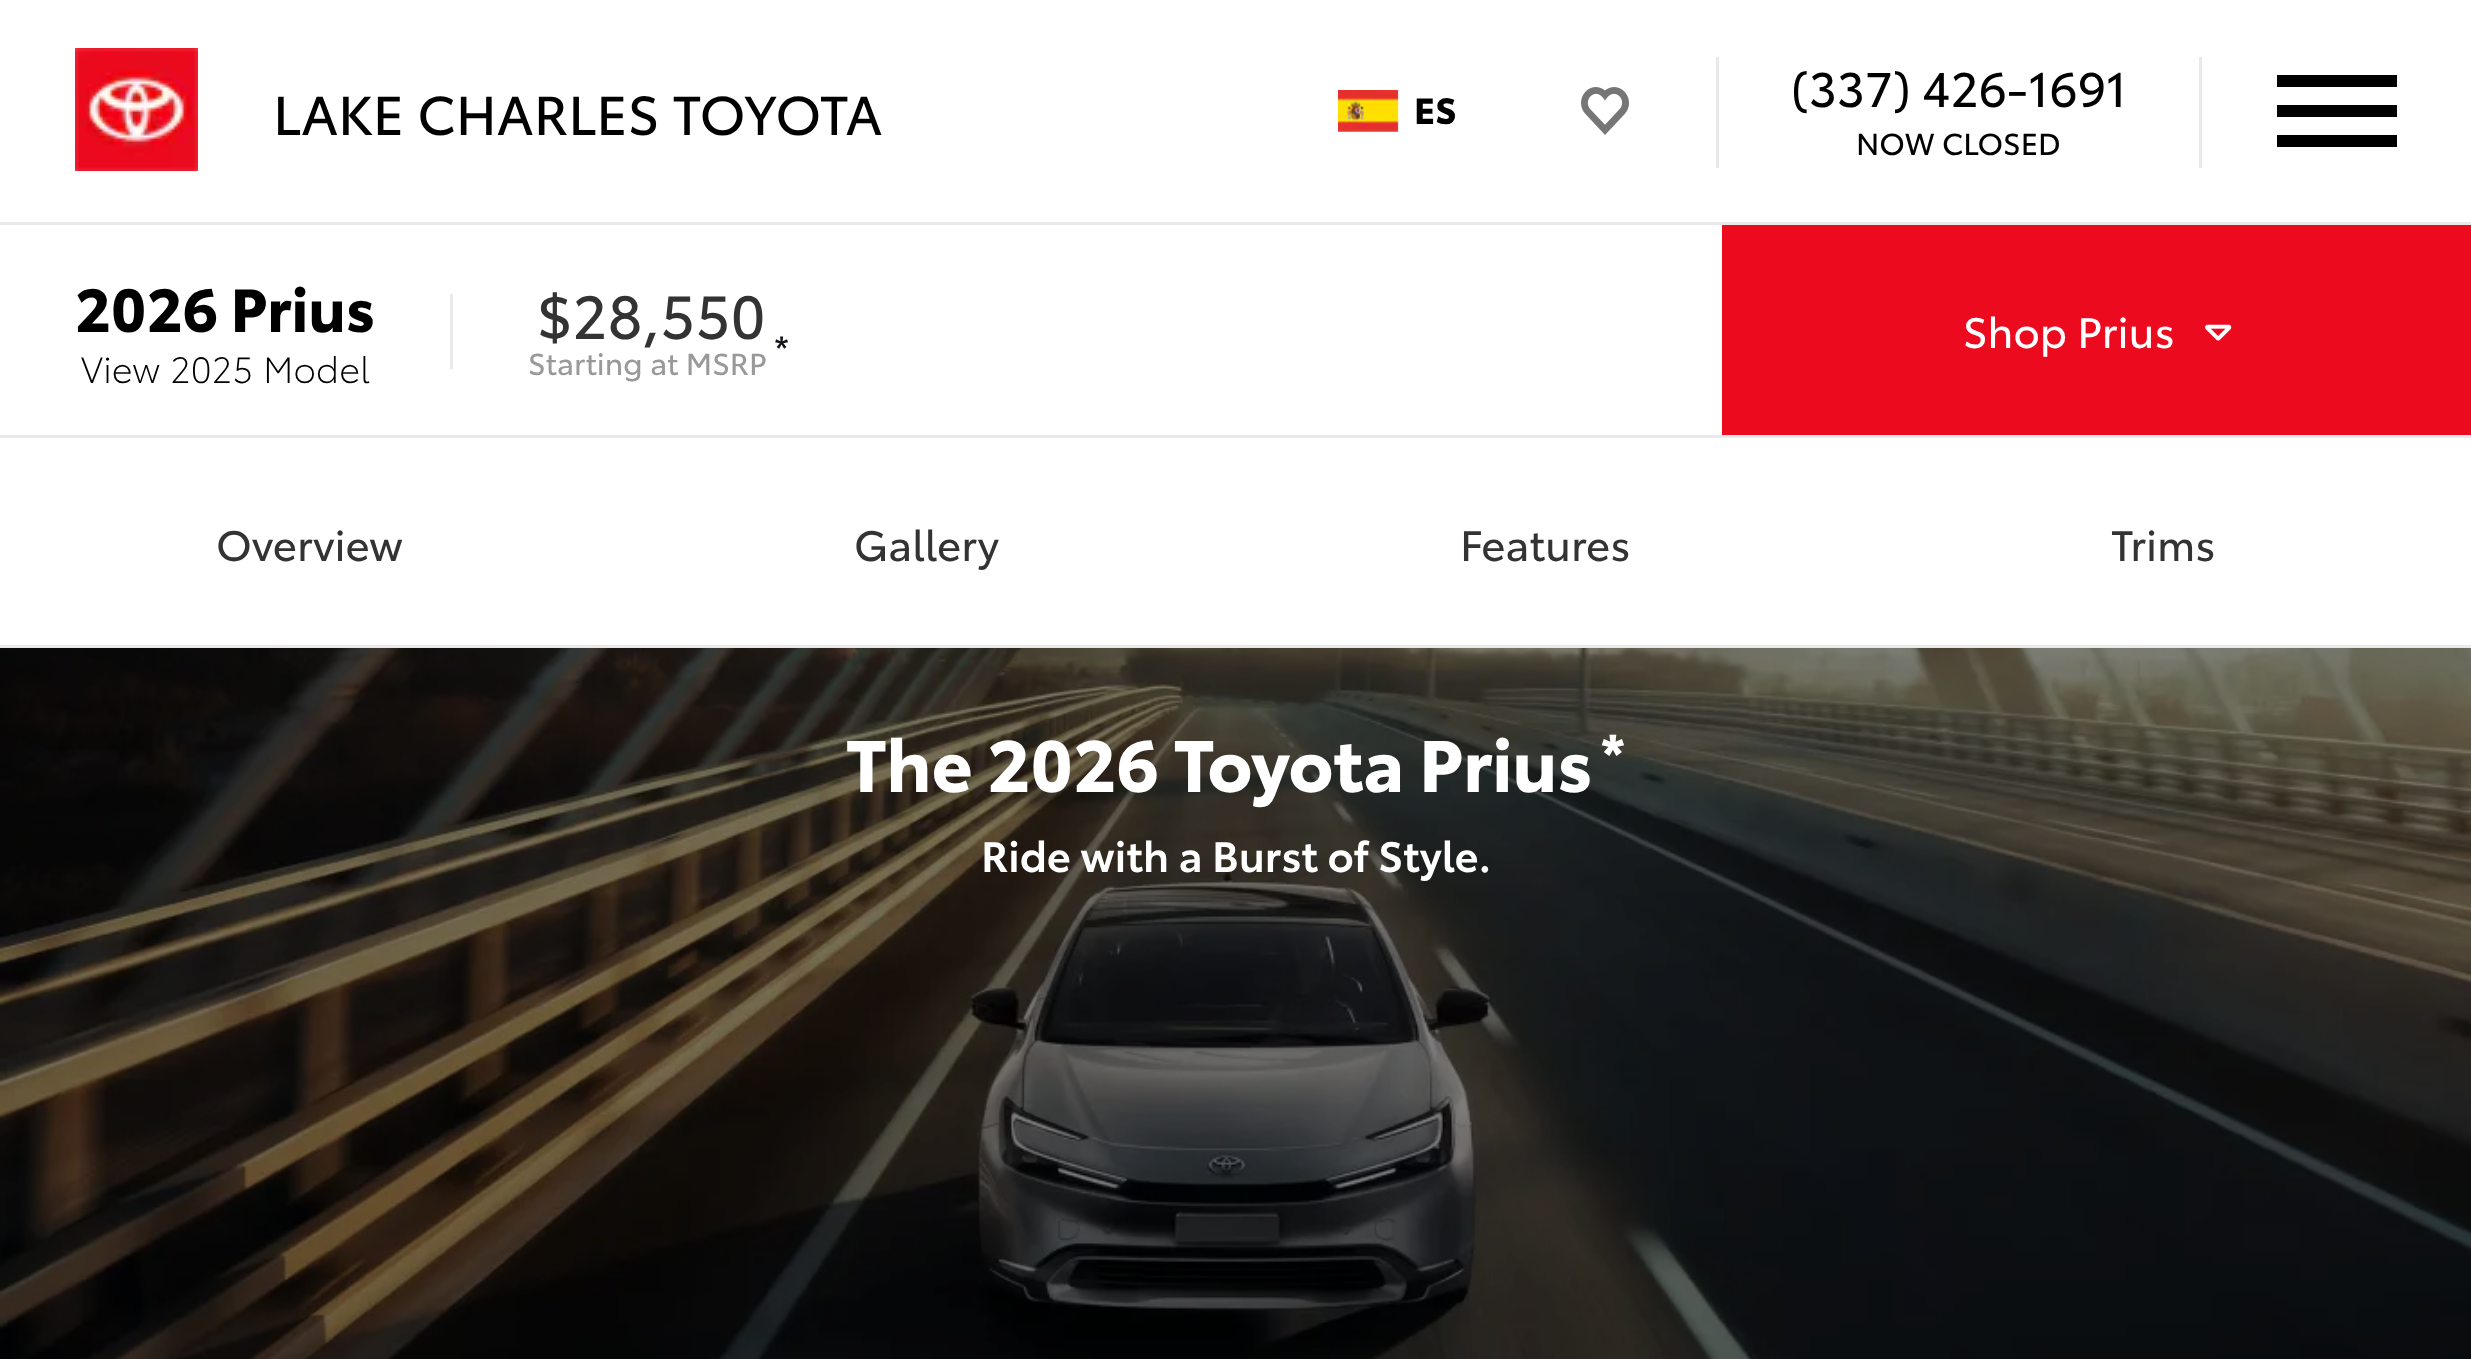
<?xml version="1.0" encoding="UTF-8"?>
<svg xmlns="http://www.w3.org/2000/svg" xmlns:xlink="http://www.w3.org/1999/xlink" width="2471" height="1359">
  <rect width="100%" height="100%" fill="#ffffff" />
  <rect y="222" width="2471" height="3" fill="#e9e9e9" />
  <image x="75" y="48" width="123" height="123" xlink:href="image1.png" />
  <image x="1338" y="90" width="61" height="42" xlink:href="image2.png" />
  <image x="1581" y="87" width="48" height="48" xlink:href="image3.png" />
  <rect x="1716" y="57" width="3" height="111" fill="#e9e9e9" />
  <rect x="2199" y="57" width="3" height="111" fill="#e9e9e9" />
  <rect x="2277" y="75" width="120" height="12" fill="#000000" />
  <rect x="2277" y="105" width="120" height="12" fill="#000000" />
  <rect x="2277" y="135" width="120" height="12" fill="#000000" />
  <rect x="450" y="294" width="3" height="75" fill="#e9e9e9" />
  <rect x="1722" y="225" width="749" height="210" fill="#eb0a1e" />
  <image x="2205" y="324" width="27" height="17" xlink:href="image4.png" />
  <rect y="435" width="2471" height="3" fill="#e9e9e9" />
  <rect y="645" width="2471" height="3" fill="#e9e9e9" />
  <image x="0" y="648" width="2471" height="711" xlink:href="image5.png" />
  <text x="273" y="135" style="font-family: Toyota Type; font-size: 54px; fill: #000000">LAKE CHARLES TOYOTA</text>
  <text x="1414" y="124" style="font-family: Toyota Type; font-size: 36px; font-weight: bold; fill: #000000">ES</text>
  <text x="1791" y="107" style="font-family: Toyota Type; font-size: 48px; fill: #000000">(337) 426-1691</text>
  <text x="1856" y="155" style="font-family: Toyota Type; font-size: 30px; fill: #000000">NOW CLOSED</text>
  <text x="75" y="332" style="font-family: Toyota Type; font-size: 60px; font-weight: bold; fill: #000000">2026 Prius</text>
  <text x="81" y="383" style="font-family: Toyota Type; font-size: 36px; font-weight: 300; fill: #000000">View 2025 Model</text>
  <text x="537" y="339" style="font-family: Toyota Type; font-size: 60px; fill: #333333">$28,550</text>
  <text x="774" y="362" style="font-family: Toyota Type; font-size: 36px; fill: #141518">*</text>
  <text x="528" y="375" style="font-family: Toyota Type; font-size: 30px; fill: #999999">Starting at MSRP</text>
  <text x="1963" y="348" style="font-family: Toyota Type; font-size: 42px; fill: #ffffff">Shop Prius</text>
  <text x="216" y="561" style="font-family: Toyota Type; font-size: 42px; fill: #333333">Overview</text>
  <text x="854" y="561" style="font-family: Toyota Type; font-size: 42px; fill: #333333">Gallery</text>
  <text x="1460" y="561" style="font-family: Toyota Type; font-size: 42px; fill: #333333">Features</text>
  <text x="2111" y="561" style="font-family: Toyota Type; font-size: 42px; fill: #333333">Trims</text>
  <text x="846" y="792" style="font-family: Toyota Type; font-size: 72px; font-weight: bold; fill: #ffffff">The 2026 Toyota Prius</text>
  <text x="1600" y="773" style="font-family: Toyota Type; font-size: 54px; font-weight: bold; fill: #ffffff">*</text>
  <text x="981" y="872" style="font-family: Toyota Type; font-size: 42px; font-weight: 600; fill: #ffffff">Ride with a Burst of Style.</text>
</svg>
